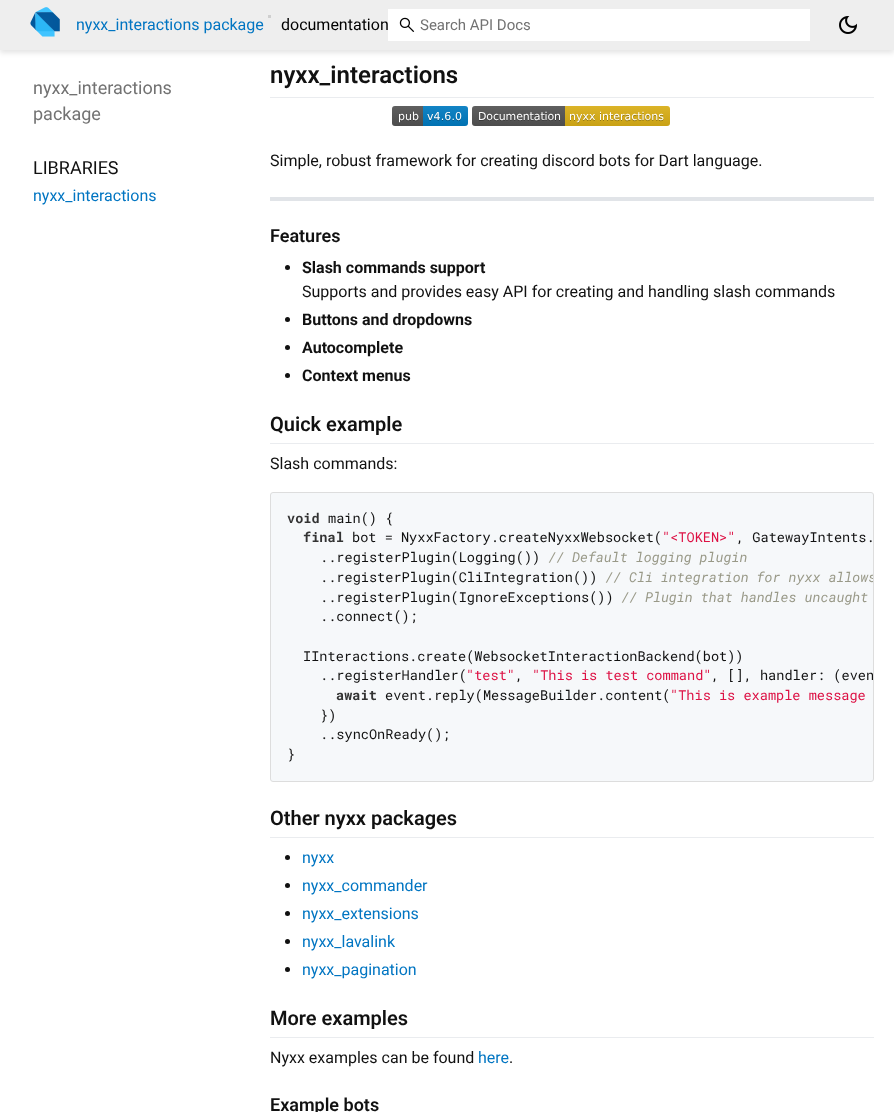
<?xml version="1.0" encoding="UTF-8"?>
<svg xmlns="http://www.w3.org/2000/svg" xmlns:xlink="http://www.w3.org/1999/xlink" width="894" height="1112">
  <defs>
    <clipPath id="clip1"><rect x="271" y="493" width="602" height="288" rx="2" /></clipPath>
  </defs>
  <rect width="100%" height="100%" fill="#ffffff" />
  <rect y="3" width="894" height="50" fill="#000000" fill-opacity="0.1" filter="blur(2.5px)" />
  <rect width="894" height="50" fill="#eeeeee" />
  <image x="30" y="7" width="30" height="30" xlink:href="image1.png" />
  <rect x="268" y="15" width="3" height="3" fill="#cfcfcf" />
  <rect x="388" y="9" width="422" height="32" fill="#ffffff" />
  <image x="399" y="17" width="16" height="15" xlink:href="image2.png" />
  <image x="839" y="16" width="18" height="18" xlink:href="image3.png" />
  <rect x="270" y="97" width="604" height="1" fill="#eaecef" />
  <image x="392" y="106" width="76" height="20" xlink:href="image4.png" />
  <image x="472" y="106" width="198" height="20" xlink:href="image5.png" />
  <rect x="270" y="197" width="604" height="4" fill="#e1e4e8" />
  <circle cx="287.5" cy="267.5" r="2.5" fill="#111111" />
  <circle cx="287.5" cy="319.5" r="2.5" fill="#111111" />
  <circle cx="287.5" cy="347.5" r="2.5" fill="#111111" />
  <circle cx="287.5" cy="375.5" r="2.5" fill="#111111" />
  <rect x="270" y="443" width="604" height="1" fill="#eaecef" />
  <rect x="270.5" y="492.5" width="603" height="289" rx="2.5" fill="#f6f8fa" stroke="#dddddd" />
  <rect x="270" y="837" width="604" height="1" fill="#eaecef" />
  <circle cx="287.5" cy="857.5" r="2.5" fill="#111111" />
  <circle cx="287.5" cy="885.5" r="2.5" fill="#111111" />
  <circle cx="287.5" cy="913.5" r="2.5" fill="#111111" />
  <circle cx="287.5" cy="941.5" r="2.5" fill="#111111" />
  <circle cx="287.5" cy="969.5" r="2.5" fill="#111111" />
  <rect x="270" y="1037" width="604" height="1" fill="#eaecef" />
  <text x="76" y="30" style="font-family: Roboto; font-size: 16px; fill: #0175c2">nyxx_interactions package</text>
  <text x="281" y="30" style="font-family: Roboto; font-size: 16px; fill: #000000">documentation</text>
  <text x="420" y="30" style="font-family: Roboto; font-size: 15px; fill: #727272">Search API Docs</text>
  <text x="33" y="94" style="font-family: Roboto; font-size: 18px; fill: #727272">nyxx_interactions</text>
  <text x="33" y="120" style="font-family: Roboto; font-size: 18px; fill: #727272">package</text>
  <text x="33" y="174" style="font-family: Roboto; font-size: 18px; fill: #111111">LIBRARIES</text>
  <text x="33" y="201" style="font-family: Roboto; font-size: 16px; fill: #0175c2">nyxx_interactions</text>
  <text x="270" y="83" style="font-family: Roboto; font-size: 24px; font-weight: 600; fill: #111111">nyxx_interactions</text>
  <text x="270" y="166" style="font-family: Roboto; font-size: 16px; fill: #111111">Simple, robust framework for creating discord bots for Dart language.</text>
  <text x="270" y="242" style="font-family: Roboto; font-size: 18px; font-weight: 600; fill: #111111">Features</text>
  <text x="302" y="273" style="font-family: Roboto; font-size: 16px; font-weight: bold; fill: #111111">Slash commands support</text>
  <text x="302" y="297" style="font-family: Roboto; font-size: 16px; fill: #111111">Supports and provides easy API for creating and handling slash commands</text>
  <text x="302" y="325" style="font-family: Roboto; font-size: 16px; font-weight: bold; fill: #111111">Buttons and dropdowns</text>
  <text x="302" y="353" style="font-family: Roboto; font-size: 16px; font-weight: bold; fill: #111111">Autocomplete</text>
  <text x="302" y="381" style="font-family: Roboto; font-size: 16px; font-weight: bold; fill: #111111">Context menus</text>
  <text x="270" y="431" style="font-family: Roboto; font-size: 20px; font-weight: 600; fill: #111111">Quick example</text>
  <text x="270" y="469" style="font-family: Roboto; font-size: 16px; fill: #111111">Slash commands:</text>
  <text x="287" y="523" style="font-family: Roboto Mono; font-size: 13.6px; font-weight: bold; fill: #333333">void</text>
  <text x="328" y="523" style="font-family: Roboto Mono; font-size: 13.6px; fill: #111111">main() {</text>
  <text x="303" y="542" style="font-family: Roboto Mono; font-size: 13.6px; font-weight: bold; fill: #333333">final</text>
  <text x="352" y="542" style="font-family: Roboto Mono; font-size: 13.6px; fill: #111111">bot = NyxxFactory.createNyxxWebsocket(</text>
  <text x="662" y="542" style="font-family: Roboto Mono; font-size: 13.6px; fill: #dd1144">"&lt;TOKEN&gt;"</text>
  <text x="736" y="542" style="font-family: Roboto Mono; font-size: 13.6px; fill: #111111">, GatewayIntents.</text>
  <text x="320" y="562" style="font-family: Roboto Mono; font-size: 13.6px; fill: #111111">..registerPlugin(Logging())</text>
  <text x="548" y="562" style="font-family: Roboto Mono; font-size: 13.6px; font-style: italic; fill: #999988">// Default logging plugin</text>
  <text x="320" y="582" style="font-family: Roboto Mono; font-size: 13.6px; fill: #111111">..registerPlugin(CliIntegration())</text>
  <g clip-path="url(#clip1)">
    <text x="605" y="582" style="font-family: Roboto Mono; font-size: 13.6px; font-style: italic; fill: #999988">// Cli integration for nyxx allows</text>
  </g>
  <text x="320" y="602" style="font-family: Roboto Mono; font-size: 13.6px; fill: #111111">..registerPlugin(IgnoreExceptions())</text>
  <text x="621" y="602" style="font-family: Roboto Mono; font-size: 13.6px; font-style: italic; fill: #999988">// Plugin that handles uncaught</text>
  <text x="320" y="621" style="font-family: Roboto Mono; font-size: 13.6px; fill: #111111">..connect();</text>
  <text x="303" y="661" style="font-family: Roboto Mono; font-size: 13.6px; fill: #111111">IInteractions.create(WebsocketInteractionBackend(bot))</text>
  <text x="320" y="680" style="font-family: Roboto Mono; font-size: 13.6px; fill: #111111">..registerHandler(</text>
  <text x="466" y="680" style="font-family: Roboto Mono; font-size: 13.6px; fill: #dd1144">"test"</text>
  <text x="515" y="680" style="font-family: Roboto Mono; font-size: 13.6px; fill: #111111">,</text>
  <text x="532" y="680" style="font-family: Roboto Mono; font-size: 13.6px; fill: #dd1144">"This is test command"</text>
  <g clip-path="url(#clip1)">
    <text x="711" y="680" style="font-family: Roboto Mono; font-size: 13.6px; fill: #111111">, [], handler: (even</text>
  </g>
  <text x="336" y="700" style="font-family: Roboto Mono; font-size: 13.6px; font-weight: bold; fill: #333333">await</text>
  <text x="385" y="700" style="font-family: Roboto Mono; font-size: 13.6px; fill: #111111">event.reply(MessageBuilder.content(</text>
  <text x="670" y="700" style="font-family: Roboto Mono; font-size: 13.6px; fill: #dd1144">"This is example message</text>
  <text x="320" y="720" style="font-family: Roboto Mono; font-size: 13.6px; fill: #111111">})</text>
  <text x="320" y="739" style="font-family: Roboto Mono; font-size: 13.6px; fill: #111111">..syncOnReady();</text>
  <text x="287" y="759" style="font-family: Roboto Mono; font-size: 13.6px; fill: #111111">}</text>
  <text x="270" y="825" style="font-family: Roboto; font-size: 20px; font-weight: 600; fill: #111111">Other nyxx packages</text>
  <text x="302" y="863" style="font-family: Roboto; font-size: 16px; fill: #0175c2">nyxx</text>
  <text x="302" y="891" style="font-family: Roboto; font-size: 16px; fill: #0175c2">nyxx_commander</text>
  <text x="302" y="919" style="font-family: Roboto; font-size: 16px; fill: #0175c2">nyxx_extensions</text>
  <text x="302" y="947" style="font-family: Roboto; font-size: 16px; fill: #0175c2">nyxx_lavalink</text>
  <text x="302" y="975" style="font-family: Roboto; font-size: 16px; fill: #0175c2">nyxx_pagination</text>
  <text x="270" y="1025" style="font-family: Roboto; font-size: 20px; font-weight: 600; fill: #111111">More examples</text>
  <text x="270" y="1063" style="font-family: Roboto; font-size: 16px; fill: #111111">Nyxx examples can be found</text>
  <text x="478" y="1063" style="font-family: Roboto; font-size: 16px; fill: #0175c2">here</text>
  <text x="509" y="1063" style="font-family: Roboto; font-size: 16px; fill: #111111">.</text>
  <text x="270" y="1111" style="font-family: Roboto; font-size: 18px; font-weight: 600; fill: #111111">Example bots</text>
</svg>
